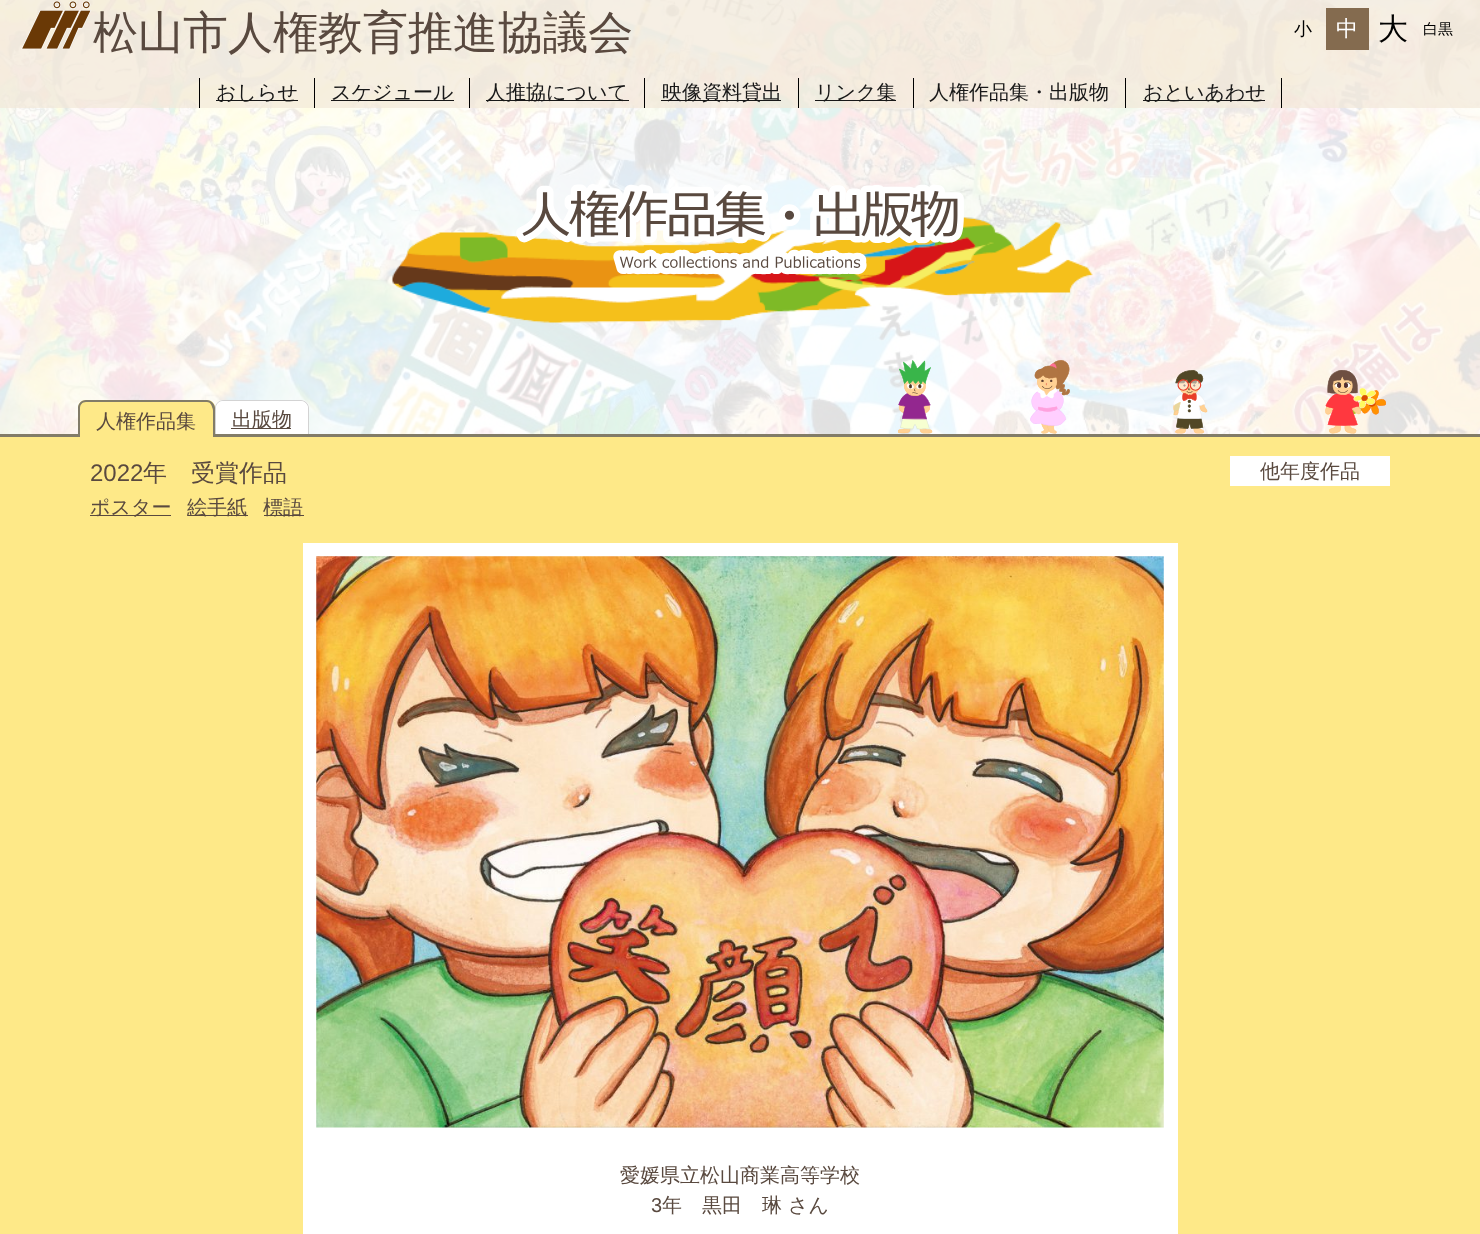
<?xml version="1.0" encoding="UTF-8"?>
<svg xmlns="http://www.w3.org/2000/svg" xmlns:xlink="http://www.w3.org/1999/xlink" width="1480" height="1234">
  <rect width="100%" height="100%" fill="#ffffff" />
  <image x="0" y="0" width="1480" height="434" xlink:href="image1.png" />
  <rect width="1480" height="108" fill="#f2e8d8" fill-opacity="0.7" />
  <image x="21" y="0" width="71" height="50" xlink:href="image2.png" />
  <rect x="1326" y="8" width="43" height="42" fill="#846b4f" />
  <rect x="314" y="78" width="1" height="30" fill="#000000" />
  <rect x="199" y="78" width="1" height="30" fill="#000000" />
  <rect x="216" y="100" width="82" height="1" fill="#181818" />
  <rect x="469" y="78" width="1" height="30" fill="#000000" />
  <rect x="331" y="100" width="123" height="1" fill="#181818" />
  <rect x="644" y="78" width="1" height="30" fill="#000000" />
  <rect x="486" y="100" width="143" height="1" fill="#181818" />
  <rect x="798" y="78" width="1" height="30" fill="#000000" />
  <rect x="661" y="100" width="120" height="1" fill="#181818" />
  <rect x="913" y="78" width="1" height="30" fill="#000000" />
  <rect x="815" y="100" width="81" height="1" fill="#181818" />
  <rect x="1125" y="78" width="1" height="30" fill="#000000" />
  <rect x="1281" y="78" width="1" height="30" fill="#000000" />
  <rect x="1143" y="100" width="122" height="1" fill="#181818" />
  <image x="391" y="216" width="702" height="107" xlink:href="image3.png" />
  <image x="516" y="184" width="448" height="91" xlink:href="image4.png" />
  <path d="M 86 400 h 121 c 4.5 0 8 3.5 8 8 v 26 h -137 v -26 c 0 -4.5 3.5 -8 8 -8 z" fill="#fee988" />
  <path d="M 86 400 h 121 c 4 0 8 4 8 8 v 26 h -137 v -26 c 0 -4 3 -8 8 -8 z m 0 2 h 121 c 3 0 5 3 5 6 v 26 h -132 v -26 c 0 -3 2 -6 6 -6 z" fill="#827c68" fill-rule="evenodd" />
  <rect y="437" width="1480" height="797" fill="#fee988" />
  <rect y="434" width="1480" height="3" fill="#827c68" />
  <path d="M 88 403 h 117 c 4.5 0 8 3.5 8 8 v 34 h -133 v -34 c 0 -4.5 3.5 -8 8 -8 z" fill="#fee988" />
  <path d="M 223 400 h 78 c 4.5 0 8 3.5 8 8 v 26 h -94 v -26 c 0 -4.5 3.5 -8 8 -8 z" fill="#ffffff" />
  <path d="M 223 400 h 78 c 4 0 8 4 8 8 v 26 h -94 v -26 c 0 -4 4 -8 8 -8 z m 0 1 h 78 c 3 0 7 3 7 7 v 26 h -92 v -26 c 0 -4 3 -7 7 -7 z" fill="#d3d3d3" fill-rule="evenodd" />
  <path d="M 224 401 h 76 c 4.5 0 8 3.5 8 8 v 25 h -92 v -25 c 0 -4.5 3.5 -8 8 -8 z" fill="#ffffff" />
  <rect x="231" y="428" width="60" height="1" fill="#59493f" />
  <image x="898" y="360" width="35" height="74" xlink:href="image5.png" />
  <image x="1030" y="360" width="40" height="74" xlink:href="image6.png" />
  <image x="1173" y="370" width="35" height="64" xlink:href="image7.png" />
  <image x="1325" y="370" width="61" height="64" xlink:href="image8.png" />
  <rect x="1230" y="456" width="160" height="30" fill="#ffffff" />
  <rect x="90" y="515" width="81" height="1" fill="#59493f" />
  <rect x="188" y="515" width="60" height="1" fill="#59493f" />
  <rect x="264" y="515" width="40" height="1" fill="#59493f" />
  <rect x="303" y="543" width="875" height="691" fill="#ffffff" />
  <image x="316" y="556" width="848" height="572" xlink:href="image9.png" />
  <text x="93" y="48" style="font-family: WenQuanYi Zen Hei; font-size: 45px; font-weight: 500; fill: #59493f">松山市人権教育推進協議会</text>
  <text x="1294" y="35" style="font-family: WenQuanYi Zen Hei; font-size: 18px; font-weight: 500; fill: #000000">小</text>
  <text x="1336" y="36" style="font-family: WenQuanYi Zen Hei; font-size: 22px; font-weight: 500; fill: #ffffff">中</text>
  <text x="1378" y="39" style="font-family: WenQuanYi Zen Hei; font-size: 30px; font-weight: 500; fill: #000000">大</text>
  <text x="1423" y="34" style="font-family: WenQuanYi Zen Hei; font-size: 15px; font-weight: 500; fill: #000000">白黒</text>
  <text x="216" y="99" style="font-family: WenQuanYi Zen Hei; font-size: 20px; font-weight: 500; fill: #181818">おしらせ</text>
  <text x="331" y="99" style="font-family: WenQuanYi Zen Hei; font-size: 20px; font-weight: 500; fill: #181818">スケジュール</text>
  <text x="486" y="99" style="font-family: WenQuanYi Zen Hei; font-size: 20px; font-weight: 500; fill: #181818">人推協について</text>
  <text x="662" y="99" style="font-family: WenQuanYi Zen Hei; font-size: 20px; font-weight: 500; fill: #181818">映像資料貸出</text>
  <text x="815" y="99" style="font-family: WenQuanYi Zen Hei; font-size: 20px; font-weight: 500; fill: #181818">リンク集</text>
  <text x="929" y="99" style="font-family: WenQuanYi Zen Hei; font-size: 20px; font-weight: 500; fill: #181818">人権作品集・出版物</text>
  <text x="1143" y="99" style="font-family: WenQuanYi Zen Hei; font-size: 20px; font-weight: 500; fill: #181818">おといあわせ</text>
  <text x="96" y="428" style="font-family: WenQuanYi Zen Hei; font-size: 20px; font-weight: 500; fill: #59493f">人権作品集</text>
  <text x="232" y="426" style="font-family: WenQuanYi Zen Hei; font-size: 20px; font-weight: 500; fill: #59493f">出版物</text>
  <text x="90" y="481" style="font-family: Liberation Sans; font-size: 24px; fill: #59493f">2022</text>
  <text x="143" y="481" style="font-family: WenQuanYi Zen Hei; font-size: 24px; font-weight: 500; fill: #59493f">年　受賞作品</text>
  <text x="1260" y="478" style="font-family: WenQuanYi Zen Hei; font-size: 20px; font-weight: 500; fill: #59493f">他年度作品</text>
  <text x="90" y="514" style="font-family: WenQuanYi Zen Hei; font-size: 20px; font-weight: 500; fill: #59493f">ポスター</text>
  <text x="187" y="514" style="font-family: WenQuanYi Zen Hei; font-size: 20px; font-weight: 500; fill: #59493f">絵手紙</text>
  <text x="263" y="514" style="font-family: WenQuanYi Zen Hei; font-size: 20px; font-weight: 500; fill: #59493f">標語</text>
  <text x="620" y="1182" style="font-family: WenQuanYi Zen Hei; font-size: 20px; font-weight: 500; fill: #59493f">愛媛県立松山商業高等学校</text>
  <text x="651" y="1212" style="font-family: Liberation Sans; font-size: 20px; fill: #59493f">3</text>
  <text x="662" y="1212" style="font-family: WenQuanYi Zen Hei; font-size: 20px; font-weight: 500; fill: #59493f">年</text>
  <text x="702" y="1212" style="font-family: WenQuanYi Zen Hei; font-size: 20px; font-weight: 500; fill: #59493f">黒田　琳 さん</text>
</svg>
